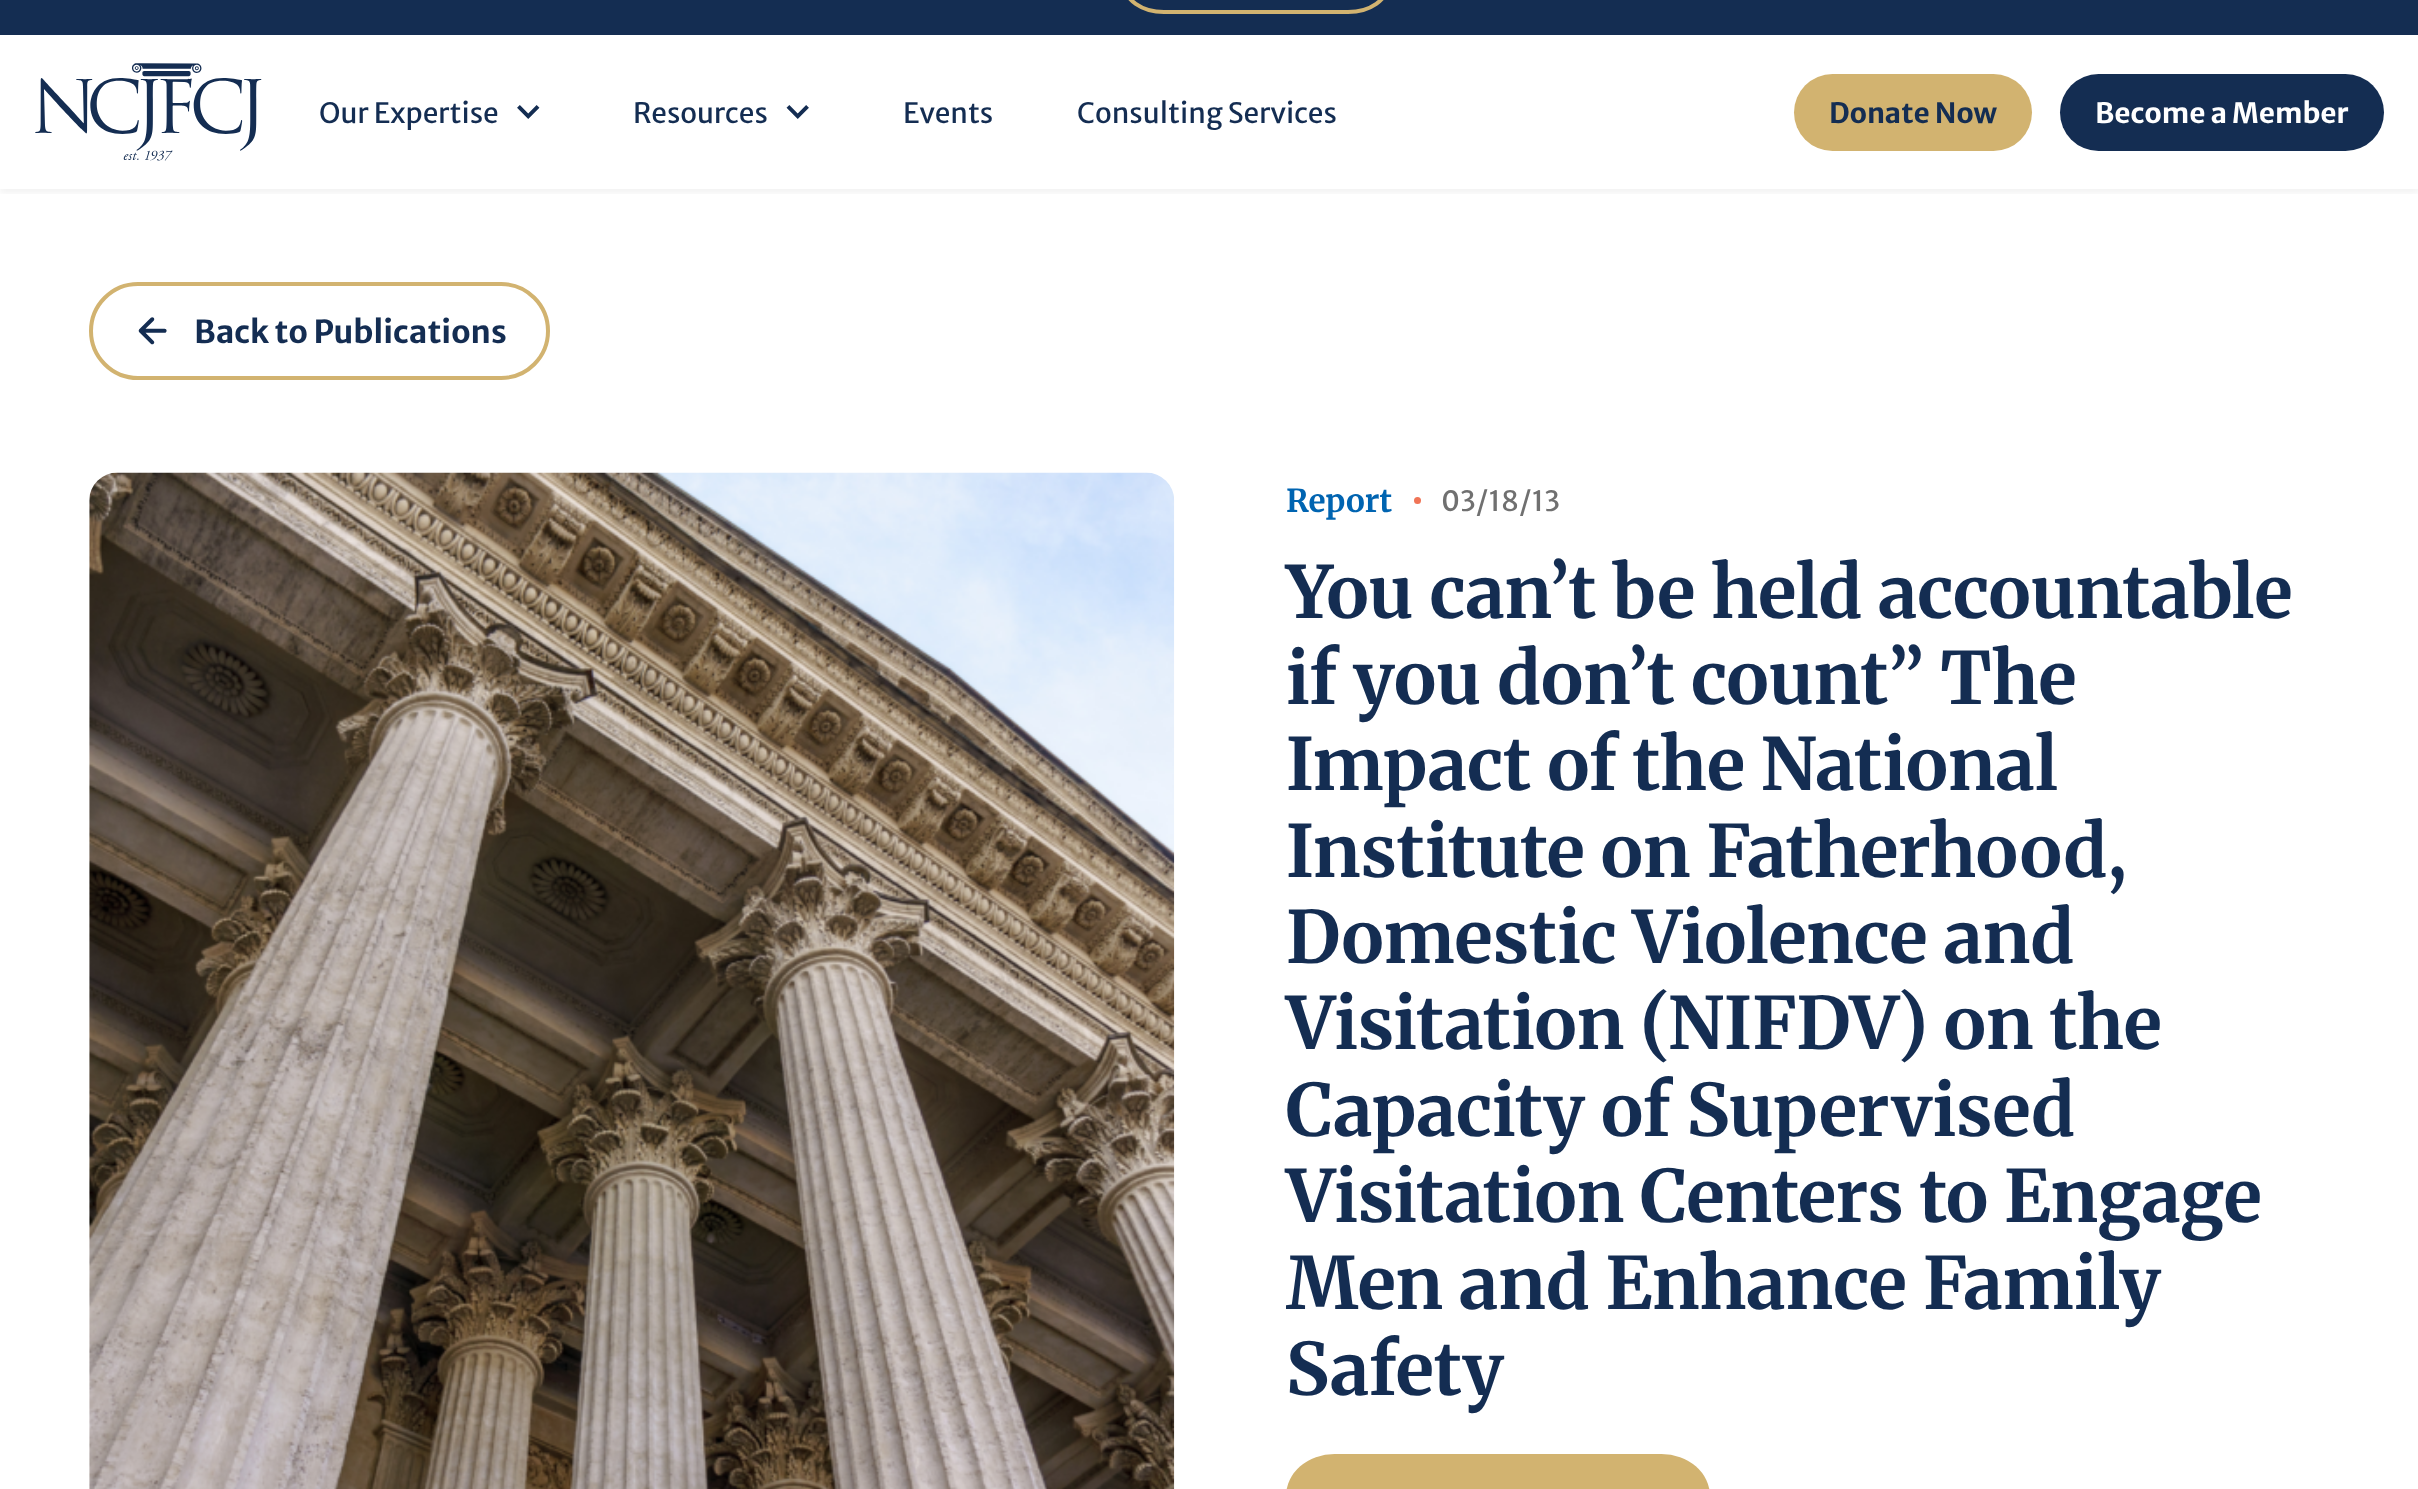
<?xml version="1.0" encoding="UTF-8"?>
<svg xmlns="http://www.w3.org/2000/svg" xmlns:xlink="http://www.w3.org/1999/xlink" width="2418" height="1489">
  <defs>
    <clipPath id="clip1"><rect x="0" y="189" width="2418" height="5" /></clipPath>
  </defs>
  <rect width="100%" height="100%" fill="#ffffff" />
  <rect width="2418" height="35" fill="#142d52" />
  <rect x="1124" y="-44" width="264" height="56" rx="40" fill="none" stroke="#d2b370" stroke-width="4" />
  <g clip-path="url(#clip1)">
    <rect y="39" width="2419" height="154" fill="#000000" fill-opacity="0.05" filter="blur(3.5px)" />
  </g>
  <image x="35" y="63" width="227" height="98" xlink:href="image1.png" />
  <image x="517" y="105" width="23" height="14" xlink:href="image2.png" />
  <image x="786" y="105" width="23" height="14" xlink:href="image3.png" />
  <rect x="1794" y="74" width="238" height="77" rx="38.5" fill="#d2b370" />
  <rect x="2060" y="74" width="324" height="77" rx="38.5" fill="#142d52" />
  <rect x="91" y="284" width="457" height="94" rx="47" fill="none" stroke="#d2b370" stroke-width="4" />
  <image x="138" y="317" width="29" height="28" xlink:href="image4.png" />
  <image x="89" y="472" width="1086" height="1017" xlink:href="image5.png" />
  <circle cx="1417.5" cy="500.5" r="3.5" fill="#f07456" />
  <rect x="1286" y="1454" width="424" height="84" rx="48.5" fill="#d2b370" />
  <text x="319" y="123" style="font-family: Merriweather Sans; font-size: 28px; fill: #142d52">Our Expertise</text>
  <text x="633" y="123" style="font-family: Merriweather Sans; font-size: 28px; fill: #142d52">Resources</text>
  <text x="903" y="123" style="font-family: Merriweather Sans; font-size: 28px; fill: #142d52">Events</text>
  <text x="1077" y="123" style="font-family: Merriweather Sans; font-size: 28px; fill: #142d52">Consulting Services</text>
  <text x="1829" y="123" style="font-family: Merriweather Sans; font-size: 28px; font-weight: bold; fill: #142d52">Donate Now</text>
  <text x="2095" y="123" style="font-family: Merriweather Sans; font-size: 28px; font-weight: bold; fill: #ffffff">Become a Member</text>
  <text x="194" y="343" style="font-family: Merriweather Sans; font-size: 31.5px; font-weight: bold; fill: #142d52">Back to Publications</text>
  <text x="1286" y="512" style="font-family: Merriweather; font-size: 31.5px; font-weight: bold; fill: #0064b1">Report</text>
  <text x="1441" y="511" style="font-family: Merriweather Sans; font-size: 28px; fill: #707070">03/18/13</text>
  <text x="1286" y="618" style="font-family: 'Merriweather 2'; font-size: 72px; font-weight: bold; fill: #142d52">You can’t be held accountable</text>
  <text x="1286" y="704" style="font-family: 'Merriweather 2'; font-size: 72px; font-weight: bold; fill: #142d52">if you don’t count” The</text>
  <text x="1286" y="790" style="font-family: 'Merriweather 2'; font-size: 72px; font-weight: bold; fill: #142d52">Impact of the National</text>
  <text x="1286" y="877" style="font-family: 'Merriweather 2'; font-size: 72px; font-weight: bold; fill: #142d52">Institute on Fatherhood,</text>
  <text x="1286" y="963" style="font-family: 'Merriweather 2'; font-size: 72px; font-weight: bold; fill: #142d52">Domestic Violence and</text>
  <text x="1286" y="1049" style="font-family: 'Merriweather 2'; font-size: 72px; font-weight: bold; fill: #142d52">Visitation (NIFDV) on the</text>
  <text x="1286" y="1136" style="font-family: 'Merriweather 2'; font-size: 72px; font-weight: bold; fill: #142d52">Capacity of Supervised</text>
  <text x="1286" y="1222" style="font-family: 'Merriweather 2'; font-size: 72px; font-weight: bold; fill: #142d52">Visitation Centers to Engage</text>
  <text x="1286" y="1309" style="font-family: 'Merriweather 2'; font-size: 72px; font-weight: bold; fill: #142d52">Men and Enhance Family</text>
  <text x="1286" y="1395" style="font-family: 'Merriweather 2'; font-size: 72px; font-weight: bold; fill: #142d52">Safety</text>
</svg>
